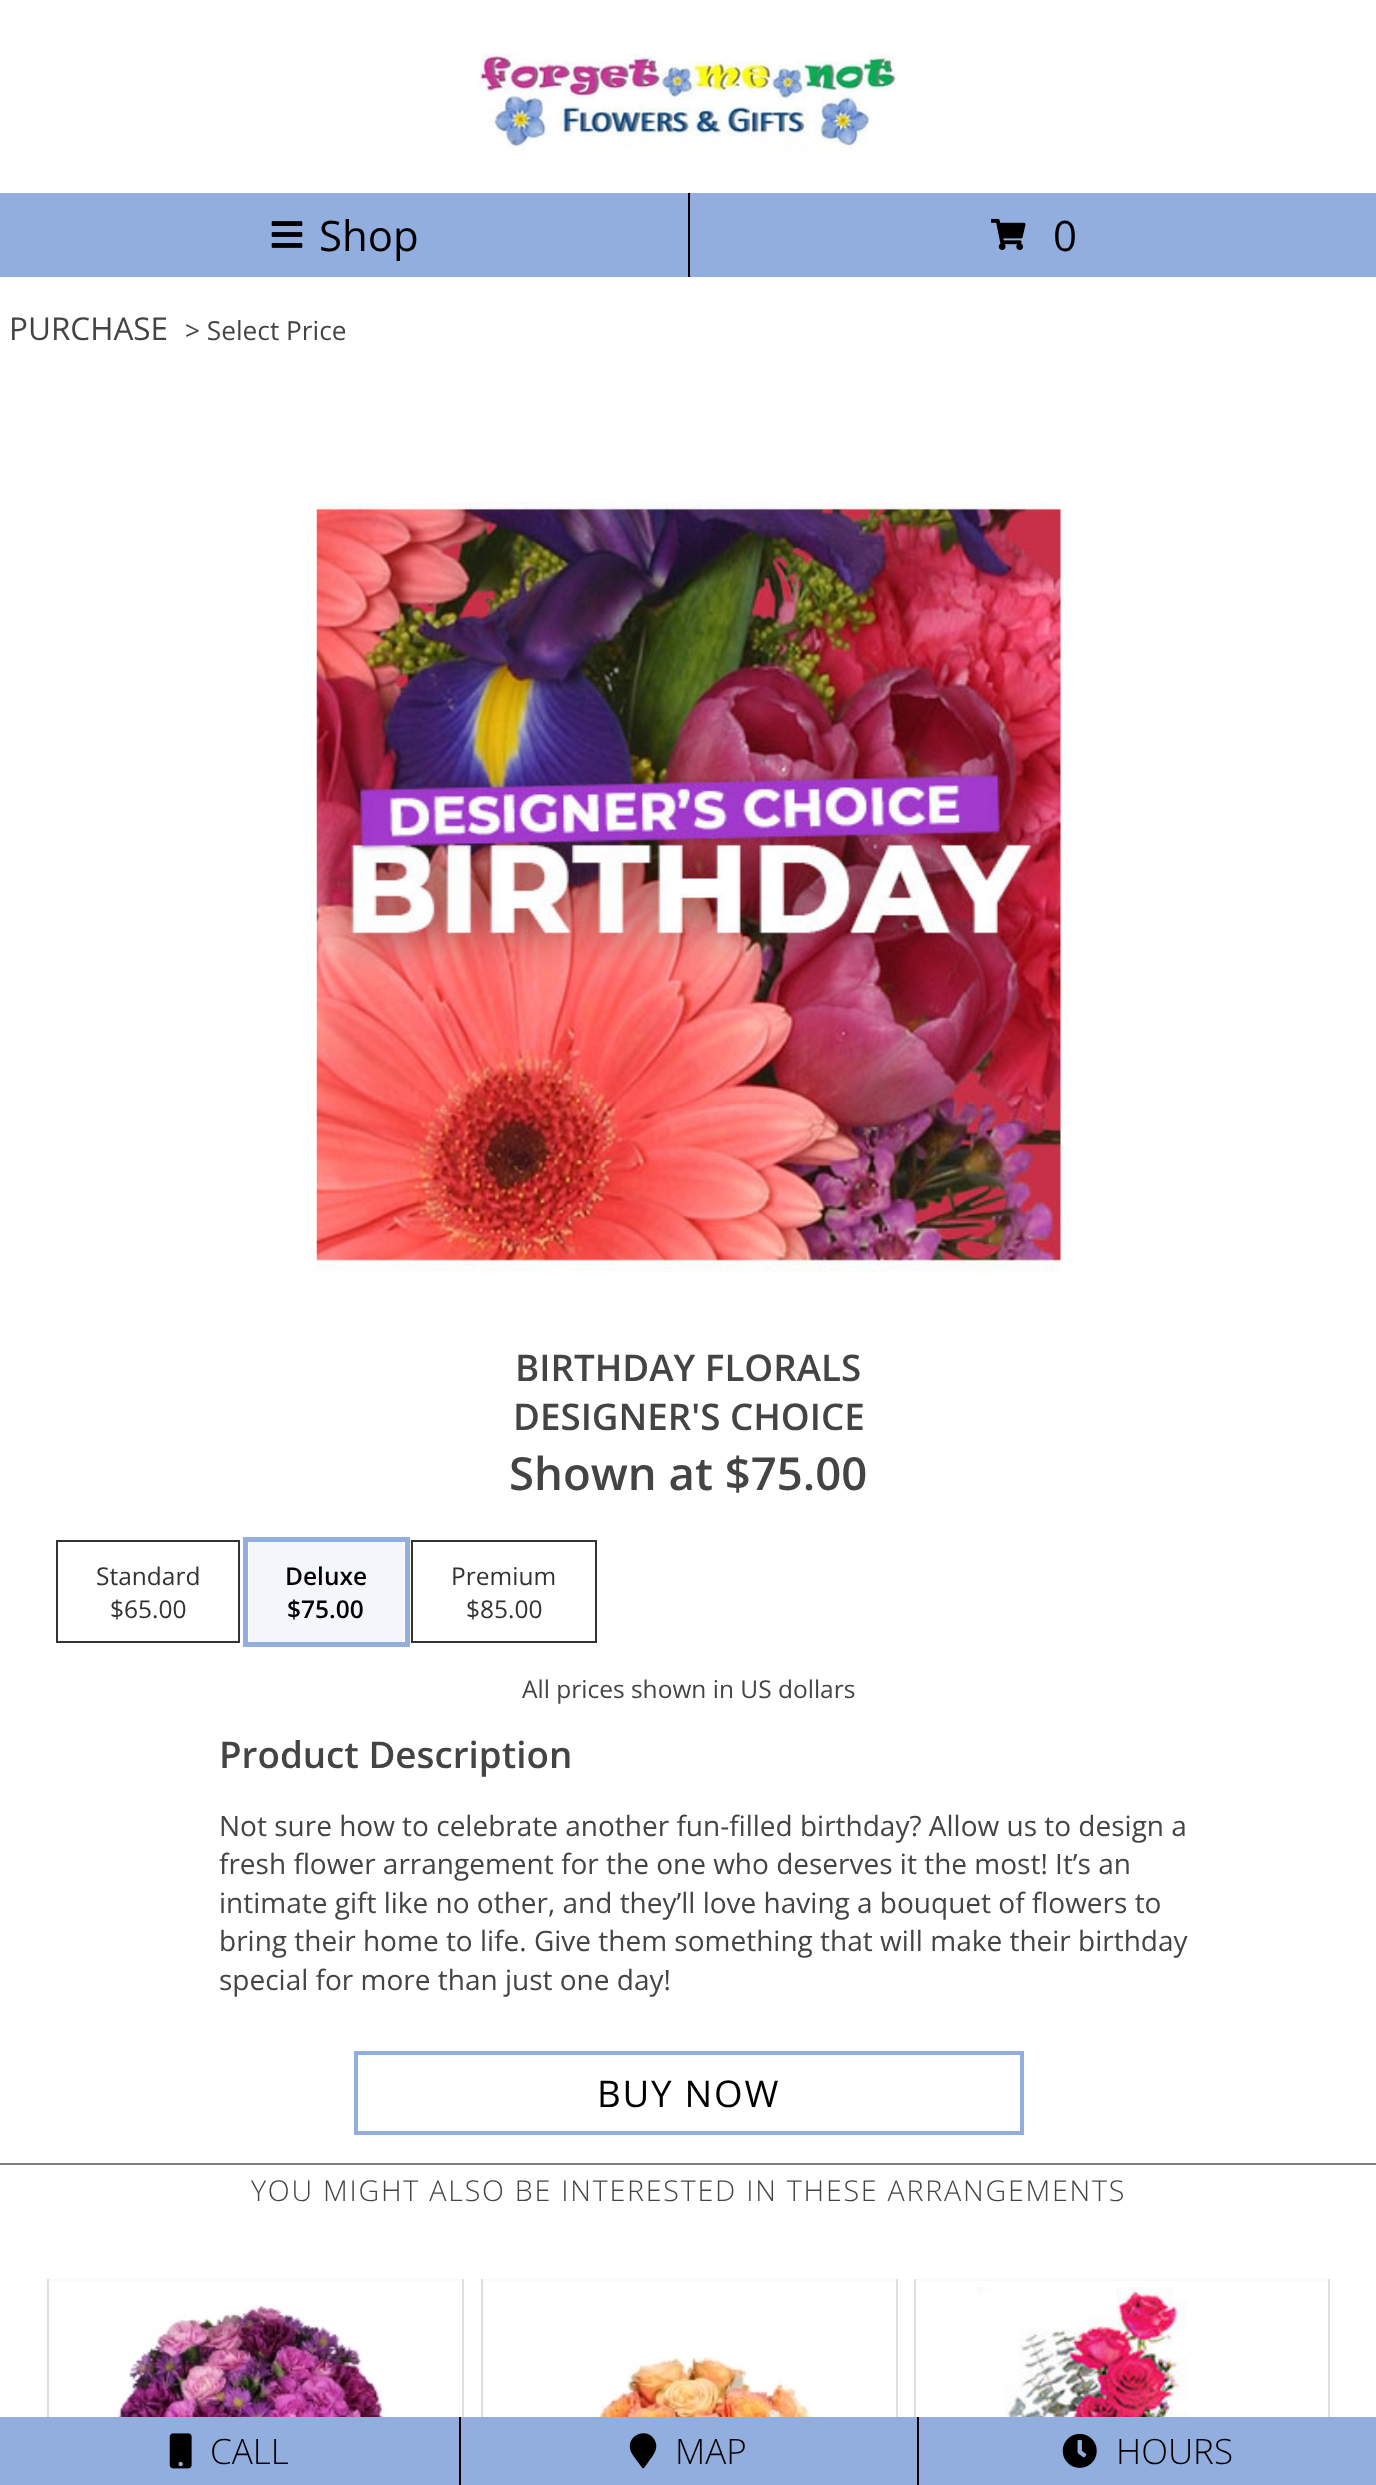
<?xml version="1.0" encoding="UTF-8"?>
<svg xmlns="http://www.w3.org/2000/svg" xmlns:xlink="http://www.w3.org/1999/xlink" width="1376" height="2485">
  <rect width="100%" height="100%" fill="#ffffff" />
  <image x="479" y="52" width="419" height="99" xlink:href="image1.png" />
  <rect x="688" y="193" width="2" height="84" fill="#000000" />
  <rect y="193" width="688" height="84" fill="#92aede" />
  <image x="271" y="221" width="32" height="27" xlink:href="image2.png" />
  <rect x="690" y="193" width="686" height="84" fill="#92aede" />
  <image x="991" y="218" width="35" height="32" xlink:href="image3.png" />
  <image x="316" y="502" width="745" height="771" xlink:href="image4.png" />
  <rect x="57" y="1541" width="182" height="101" fill="none" stroke="#333333" stroke-width="2" />
  <rect x="245.5" y="1539.5" width="162" height="105" fill="none" stroke="#92aede" stroke-width="5" />
  <rect x="249" y="1542" width="155" height="100" fill="#f4f6fb" />
  <rect x="412" y="1541" width="184" height="101" fill="none" stroke="#333333" stroke-width="2" />
  <rect x="356" y="2053" width="666" height="80" fill="none" stroke="#92aede" stroke-width="4" />
  <rect y="2163" width="1376" height="2" fill="#808080" />
  <rect x="47" y="2279" width="417" height="2" fill="#f9f9f9" />
  <rect x="462" y="2279" width="2" height="138" fill="#e2dedd" />
  <rect x="47" y="2279" width="2" height="138" fill="#e2dedd" />
  <image x="117" y="2305" width="272" height="112" xlink:href="image5.png" />
  <rect x="481" y="2279" width="417" height="2" fill="#f9f9f9" />
  <rect x="896" y="2279" width="2" height="138" fill="#e2dedd" />
  <rect x="481" y="2279" width="2" height="138" fill="#e2dedd" />
  <image x="552" y="2356" width="278" height="61" xlink:href="image6.png" />
  <rect x="914" y="2279" width="416" height="2" fill="#f9f9f9" />
  <rect x="1328" y="2279" width="2" height="138" fill="#e2dedd" />
  <rect x="914" y="2279" width="2" height="138" fill="#e2dedd" />
  <image x="977" y="2287" width="224" height="130" xlink:href="image7.png" />
  <rect y="2417" width="459" height="68" fill="#92aede" />
  <image x="169" y="2433" width="23" height="36" xlink:href="image8.png" />
  <rect x="461" y="2417" width="456" height="68" fill="#92aede" />
  <rect x="459" y="2417" width="2" height="68" fill="#000000" />
  <path d="M 642 2467.5 l -6 -8 c -2 -3 -5 -6.5 -6 -10.5 c -2.5 -14 16 -21.5 24 -10 c 6 9 -1 16.5 -6 23.5 l -4 5.5 c -1 0.5 -2 0.5 -2 -0.5 z" fill="#000000" />
  <rect x="919" y="2417" width="457" height="68" fill="#92aede" />
  <rect x="917" y="2417" width="2" height="68" fill="#000000" />
  <image x="1062" y="2433" width="35" height="35" xlink:href="image9.png" />
  <text x="319" y="251" style="font-family: Open Sans; font-size: 42px; fill: #000000">Shop</text>
  <text x="1053" y="251" style="font-family: Open Sans; font-size: 42px; fill: #000000">0</text>
  <text x="9" y="340" style="font-family: Open Sans; font-size: 31.5px; fill: #444444">PURCHASE</text>
  <text x="185" y="340" style="font-family: Open Sans; font-size: 26.25px; fill: #444444">&gt; Select Price</text>
  <text x="515" y="1381" style="font-family: Open Sans; font-size: 36.75px; font-weight: 600; fill: #444444">BIRTHDAY FLORALS</text>
  <text x="513" y="1430" style="font-family: Open Sans; font-size: 36.75px; font-weight: 600; fill: #444444">DESIGNER'S CHOICE</text>
  <text x="509" y="1490" style="font-family: Open Sans; font-size: 45.5px; font-weight: 600; fill: #444444">Shown at $75.00</text>
  <text x="96" y="1585" style="font-family: Open Sans; font-size: 24.5px; fill: #333333">Standard</text>
  <text x="110" y="1618" style="font-family: Open Sans; font-size: 24.5px; fill: #333333">$65.00</text>
  <text x="285" y="1585" style="font-family: Open Sans; font-size: 24.5px; font-weight: 600; fill: #000000">Deluxe</text>
  <text x="287" y="1618" style="font-family: Open Sans; font-size: 24.5px; font-weight: 600; fill: #000000">$75.00</text>
  <text x="451" y="1585" style="font-family: Open Sans; font-size: 24.5px; fill: #333333">Premium</text>
  <text x="466" y="1618" style="font-family: Open Sans; font-size: 24.5px; fill: #333333">$85.00</text>
  <text x="522" y="1698" style="font-family: Open Sans; font-size: 24.5px; fill: #444444">All prices shown in US dollars</text>
  <text x="219" y="1768" style="font-family: Open Sans; font-size: 36.75px; font-weight: 600; fill: #444444">Product Description</text>
  <text x="219" y="1836" style="font-family: Open Sans; font-size: 28px; fill: #444444">Not sure how to celebrate another fun-filled birthday? Allow us to design a</text>
  <text x="219" y="1874" style="font-family: Open Sans; font-size: 28px; fill: #444444">fresh flower arrangement for the one who deserves it the most! It’s an</text>
  <text x="219" y="1913" style="font-family: Open Sans; font-size: 28px; fill: #444444">intimate gift like no other, and they’ll love having a bouquet of flowers to</text>
  <text x="219" y="1951" style="font-family: Open Sans; font-size: 28px; fill: #444444">bring their home to life. Give them something that will make their birthday</text>
  <text x="219" y="1990" style="font-family: Open Sans; font-size: 28px; fill: #444444">special for more than just one day!</text>
  <text x="597" y="2107" style="font-family: Open Sans; font-size: 36.75px; letter-spacing: 1.75px; fill: #000000">BUY NOW</text>
  <text x="251" y="2201" style="font-family: Open Sans; font-size: 28.65px; font-weight: 300; letter-spacing: 1.75px; fill: #444444">YOU MIGHT ALSO BE INTERESTED IN THESE ARRANGEMENTS</text>
  <text x="210" y="2464" style="font-family: Open Sans; font-size: 35px; font-weight: 300; fill: #000000">CALL</text>
  <text x="675" y="2464" style="font-family: Open Sans; font-size: 35px; font-weight: 300; fill: #000000">MAP</text>
  <text x="1116" y="2464" style="font-family: Open Sans; font-size: 35px; font-weight: 300; fill: #000000">HOURS</text>
</svg>
